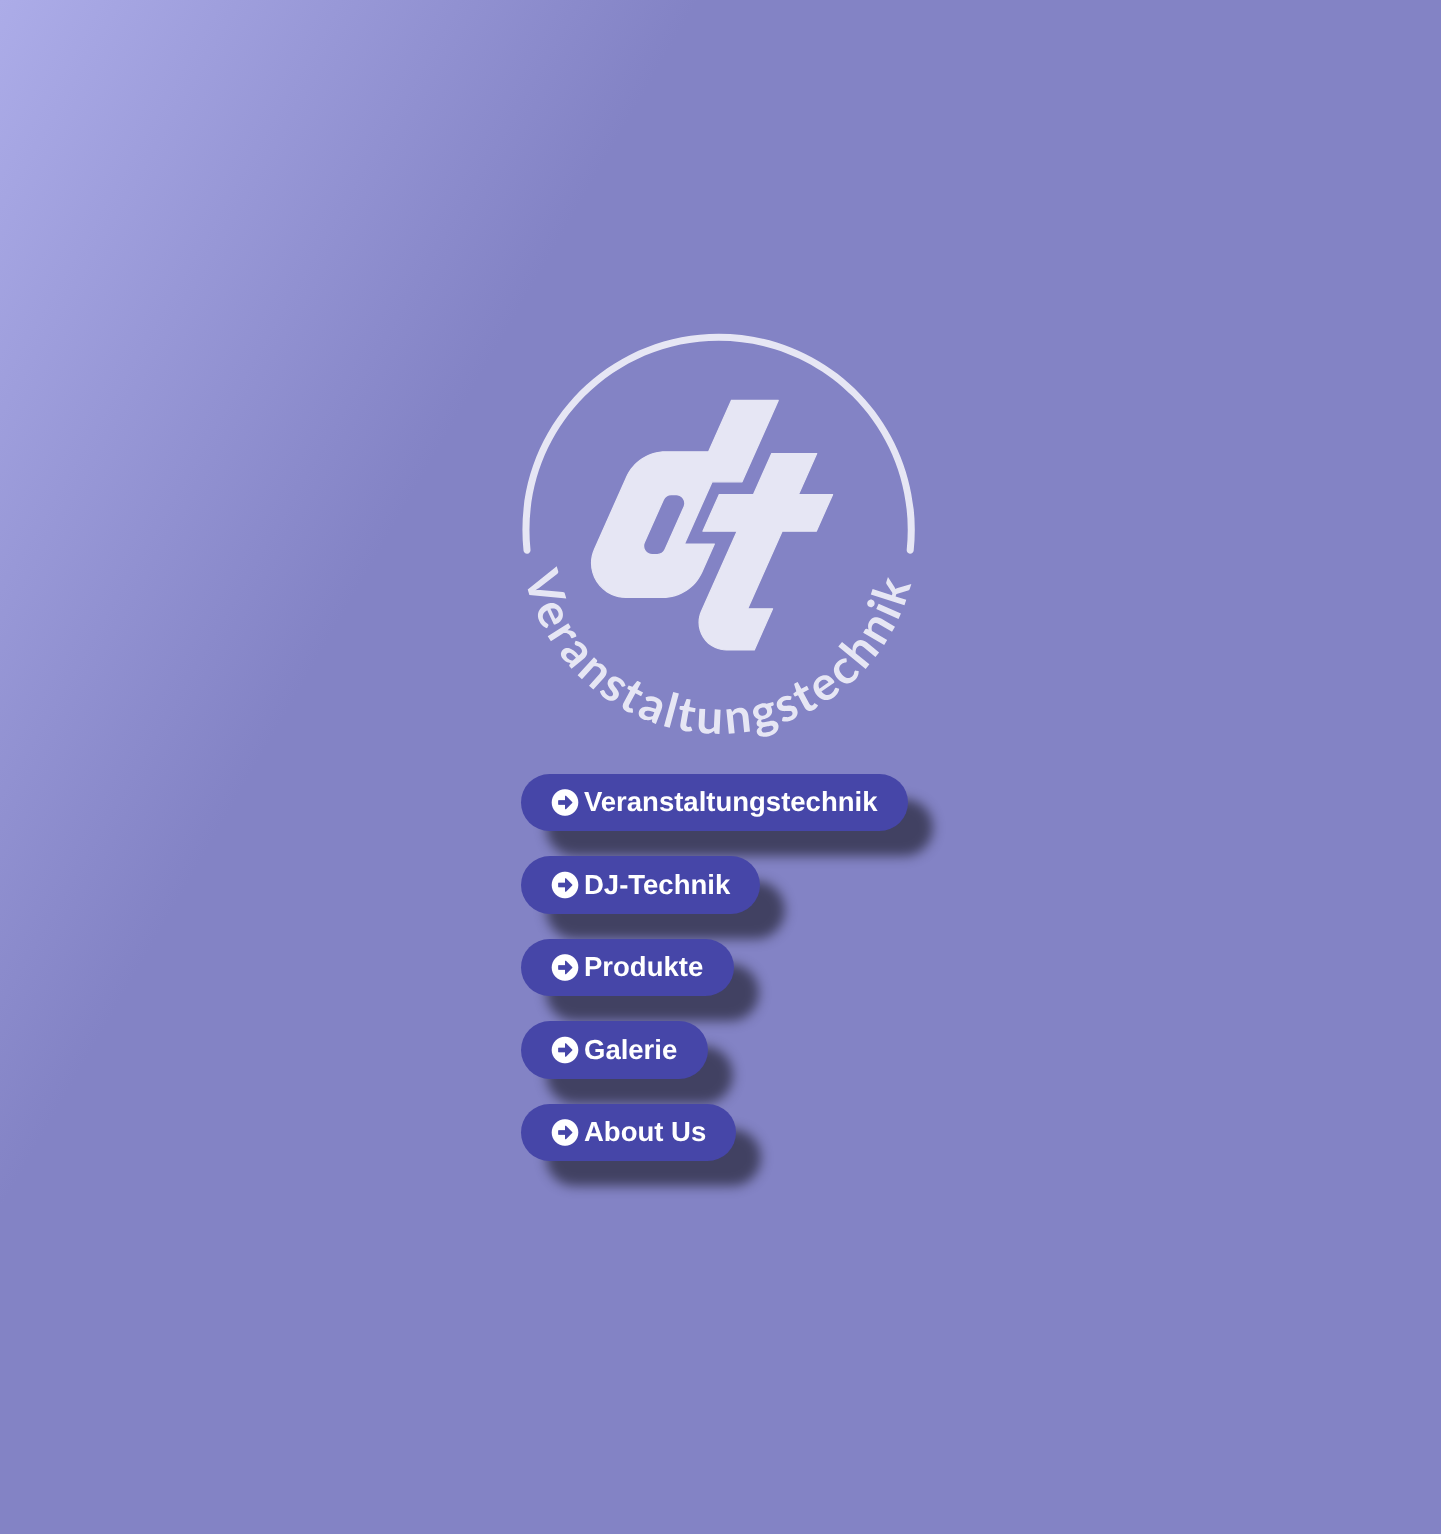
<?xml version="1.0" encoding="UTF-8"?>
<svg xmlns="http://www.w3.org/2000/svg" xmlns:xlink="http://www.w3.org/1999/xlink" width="1441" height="1534">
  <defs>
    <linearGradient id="g1" gradientUnits="userSpaceOnUse" x1="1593" y1="1271" x2="-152" y2="264"><stop offset="0.7" stop-color="#8383c5" /><stop offset="1" stop-color="#acace8" /></linearGradient>
  </defs>
  <rect width="100%" height="100%" fill="#ffffff" />
  <rect width="1441" height="1534" fill="url(#g1)" />
  <image x="522" y="333" width="393" height="404" xlink:href="image1.png" />
  <rect x="546" y="799" width="387" height="57" rx="28.5" fill="#000000" fill-opacity="0.5" filter="blur(6px)" />
  <rect x="521" y="774" width="387" height="57" rx="28.5" fill="#4646a8" />
  <image x="551" y="789" width="28" height="27" xlink:href="image2.png" />
  <rect x="546" y="881" width="239" height="58" rx="29" fill="#000000" fill-opacity="0.5" filter="blur(6px)" />
  <rect x="521" y="856" width="239" height="58" rx="29" fill="#4646a8" />
  <image x="551" y="871" width="28" height="28" xlink:href="image3.png" />
  <rect x="546" y="964" width="213" height="57" rx="28.5" fill="#000000" fill-opacity="0.5" filter="blur(6px)" />
  <rect x="521" y="939" width="213" height="57" rx="28.5" fill="#4646a8" />
  <image x="551" y="954" width="28" height="27" xlink:href="image2.png" />
  <rect x="546" y="1046" width="187" height="58" rx="29" fill="#000000" fill-opacity="0.5" filter="blur(6px)" />
  <rect x="521" y="1021" width="187" height="58" rx="29" fill="#4646a8" />
  <image x="551" y="1036" width="28" height="28" xlink:href="image3.png" />
  <rect x="546" y="1129" width="215" height="57" rx="28.5" fill="#000000" fill-opacity="0.5" filter="blur(6px)" />
  <rect x="521" y="1104" width="215" height="57" rx="28.5" fill="#4646a8" />
  <image x="551" y="1119" width="28" height="27" xlink:href="image2.png" />
  <text x="584" y="811" style="font-family: Liberation Sans; font-size: 27.5px; font-weight: bold; fill: #ffffff">Veranstaltungstechnik</text>
  <text x="584" y="894" style="font-family: Liberation Sans; font-size: 27.5px; font-weight: bold; fill: #ffffff">DJ-Technik</text>
  <text x="584" y="976" style="font-family: Liberation Sans; font-size: 27.5px; font-weight: bold; fill: #ffffff">Produkte</text>
  <text x="584" y="1059" style="font-family: Liberation Sans; font-size: 27.5px; font-weight: bold; fill: #ffffff">Galerie</text>
  <text x="584" y="1141" style="font-family: Liberation Sans; font-size: 27.5px; font-weight: bold; fill: #ffffff">About Us</text>
</svg>
